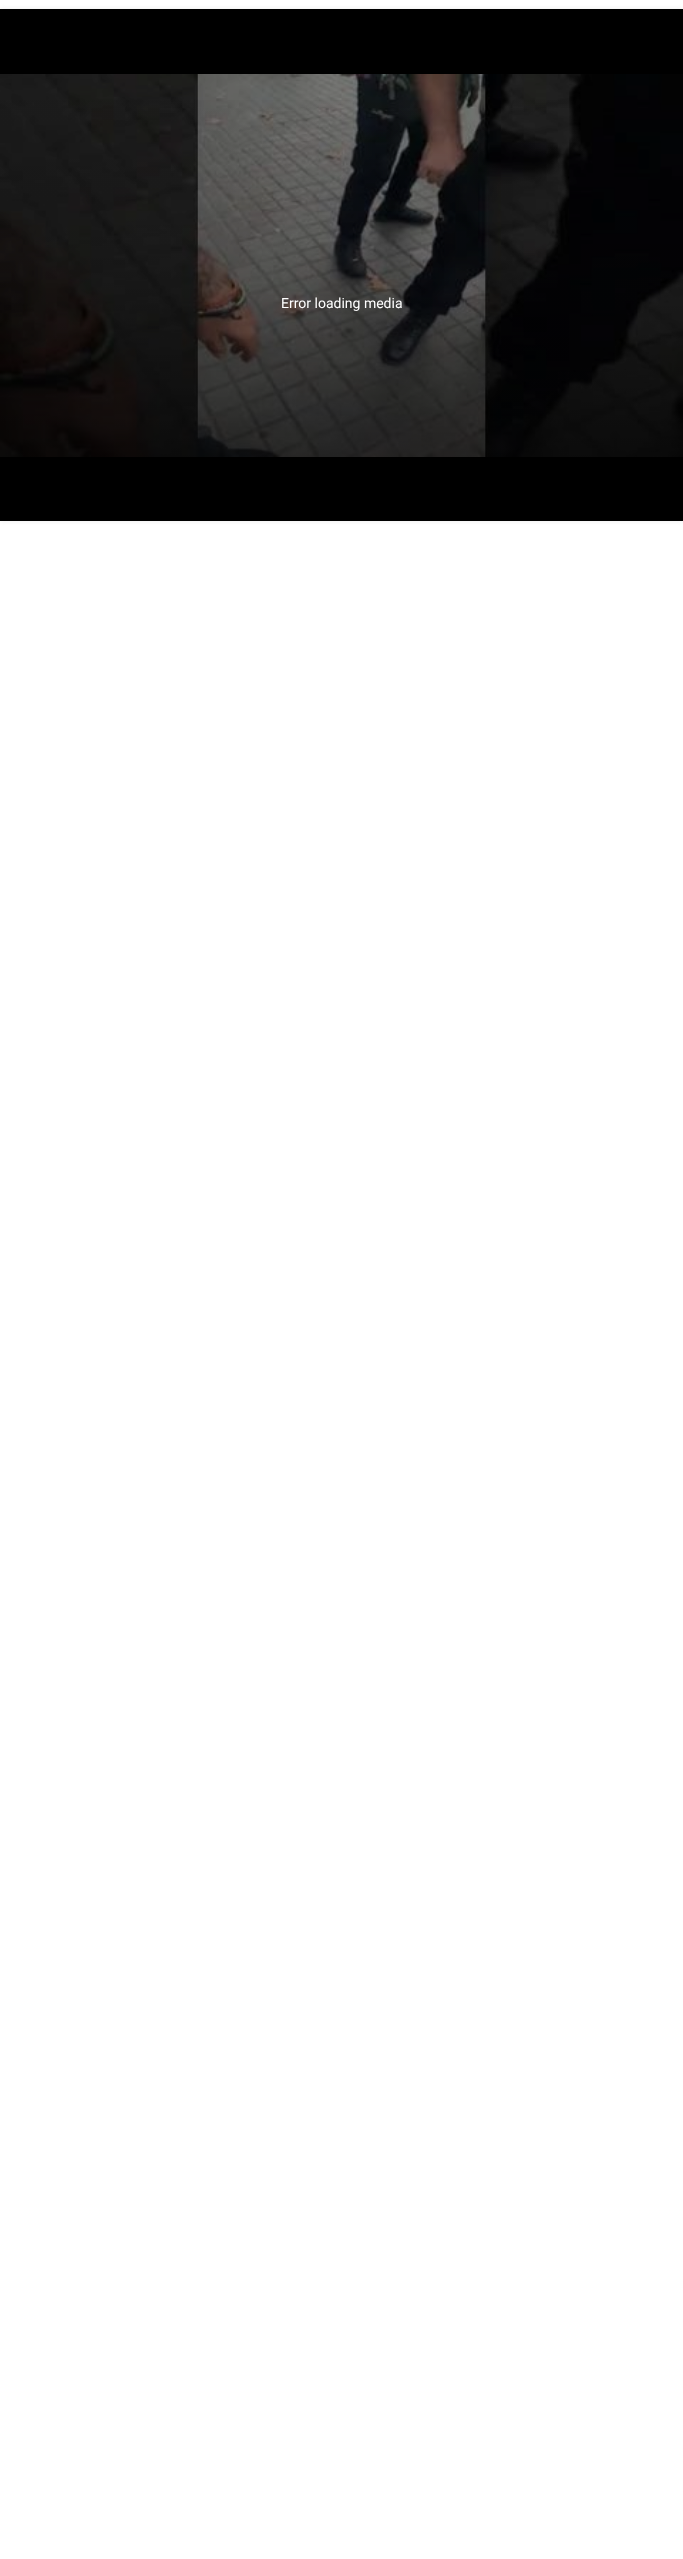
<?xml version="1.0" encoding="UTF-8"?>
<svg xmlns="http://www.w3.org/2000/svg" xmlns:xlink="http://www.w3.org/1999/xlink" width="683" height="2559">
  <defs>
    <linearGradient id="g1" gradientUnits="userSpaceOnUse" x1="342" y1="60" x2="342" y2="521"><stop offset="0" stop-color="#000000" stop-opacity="0" /><stop offset="0.4" stop-color="#000000" stop-opacity="0.1" /><stop offset="1" stop-color="#000000" stop-opacity="0.7" /></linearGradient>
  </defs>
  <rect width="100%" height="100%" fill="#ffffff" />
  <rect y="9" width="683" height="512" fill="#cccccc" fill-opacity="0.41" filter="blur(2.5px)" />
  <rect y="9" width="683" height="512" fill="#000000" />
  <image x="0" y="74" width="683" height="383" xlink:href="image1.png" />
  <rect y="100" width="683" height="357" fill="url(#g1)" />
  <text x="281" y="308" style="font-family: Roboto; font-size: 14px; fill: #ffffff">Error loading media</text>
</svg>
